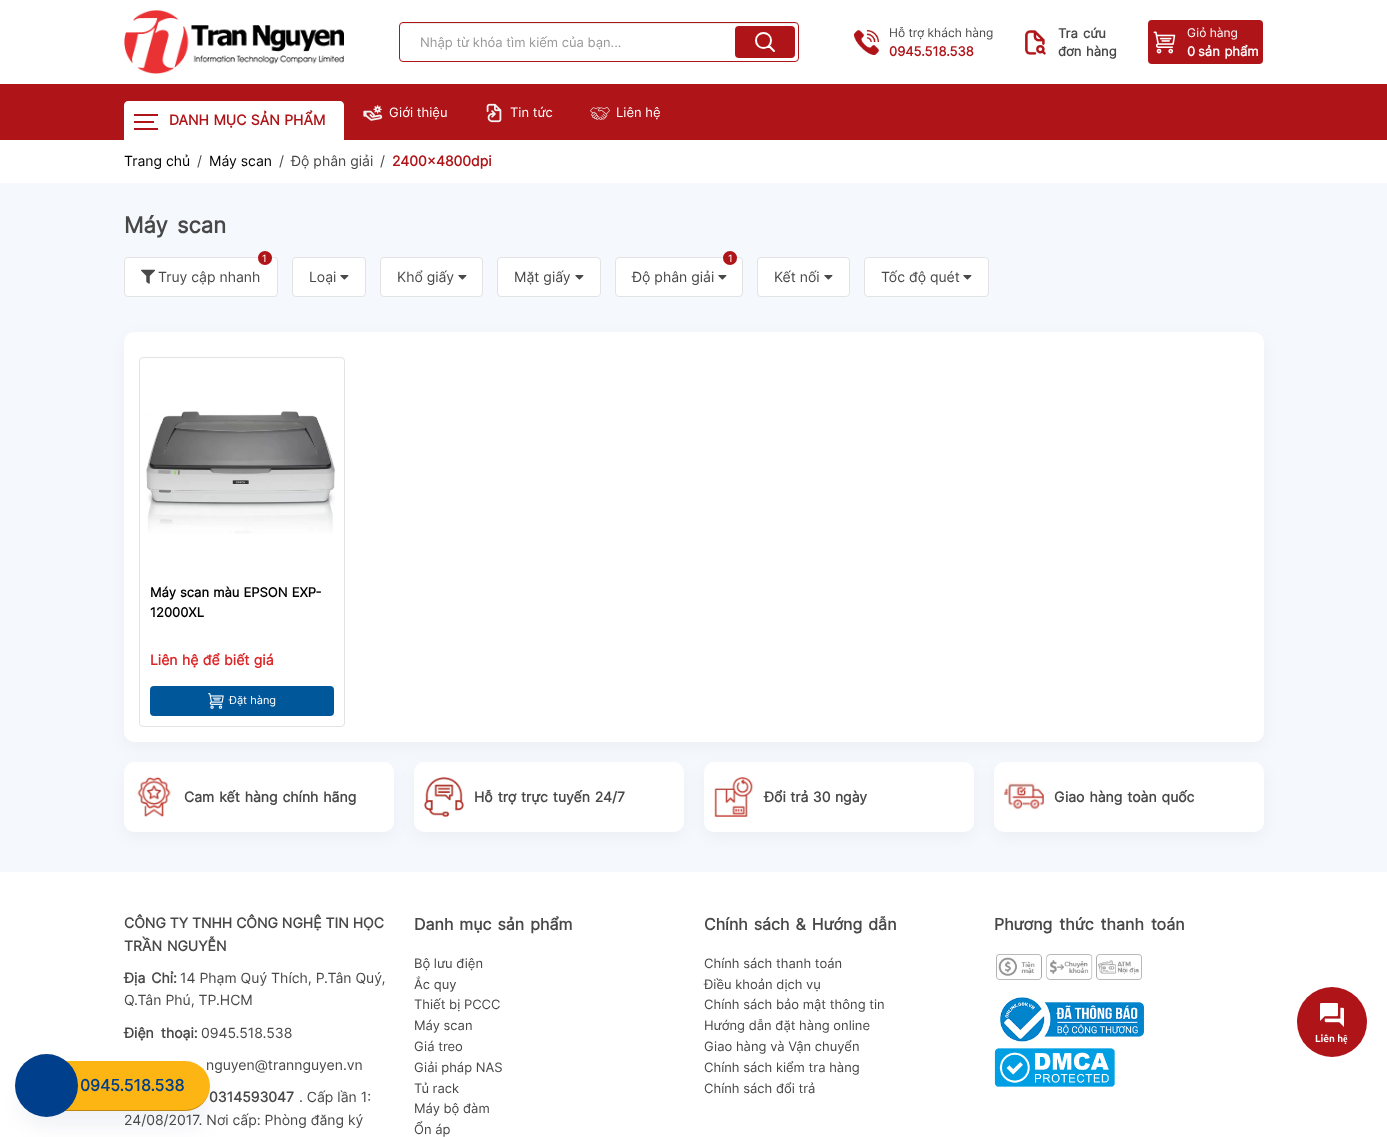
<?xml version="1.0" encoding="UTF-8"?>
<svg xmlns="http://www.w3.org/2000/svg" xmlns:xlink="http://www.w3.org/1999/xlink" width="1387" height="1137">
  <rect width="100%" height="100%" fill="#ffffff" />
  <image x="124" y="10" width="220" height="64" xlink:href="image1.png" />
  <path d="M 403 24 h 392 c 2 0 3 1 3 3 c 0 -2 -1 -4 -3 -4 h -392 l -2 1 l -1 3 c 0 -2 1 -3 3 -3 z" fill="#ececec" />
  <rect x="399.5" y="22.5" width="399" height="39" rx="3.5" fill="none" stroke="#af1418" />
  <rect x="735" y="26" width="60" height="32" rx="4" fill="#af1418" />
  <path d="M 769 46 l 5 5 m -3 -10.5 c 0 10 -15 10 -15 0 c 0 -10 15 -10 15 0 z" fill="none" stroke="#ffffff" stroke-width="2" stroke-linecap="round" stroke-linejoin="round" />
  <image x="854" y="30" width="25" height="25" xlink:href="image2.png" />
  <image x="1025" y="30" width="21" height="25" xlink:href="image3.png" />
  <rect x="1148" y="20" width="115" height="44" rx="4" fill="#af1418" />
  <image x="1153" y="31" width="23" height="23" xlink:href="image4.png" />
  <rect y="84" width="1387" height="56" fill="#af1418" />
  <path d="M 128 101 h 212 c 2 0 4 2 4 4 v 35 h -220 v -35 c 0 -2 2 -4 4 -4 z" fill="#ffffff" />
  <rect x="134" y="121" width="20" height="2" fill="#af1418" />
  <rect x="134" y="114" width="24" height="2" fill="#af1418" />
  <rect x="134" y="128" width="24" height="2" fill="#af1418" />
  <image x="363" y="105" width="20" height="16" xlink:href="image5.png" />
  <image x="486" y="103" width="16" height="20" xlink:href="image6.png" />
  <image x="590" y="107" width="20" height="13" xlink:href="image7.png" />
  <rect y="183" width="1387" height="689" fill="#f5f8fd" />
  <rect x="124.5" y="257.5" width="153" height="39" rx="3.5" fill="#ffffff" stroke="#e3e3e3" />
  <circle cx="265" cy="258" r="7" fill="#af1418" />
  <image x="141" y="269" width="14" height="15" xlink:href="image8.png" />
  <rect x="292.5" y="257.5" width="73" height="39" rx="3.5" fill="#ffffff" stroke="#e3e3e3" />
  <image x="340" y="275" width="9" height="5" xlink:href="image9.png" />
  <rect x="380.5" y="257.5" width="102" height="39" rx="3.5" fill="#ffffff" stroke="#e3e3e3" />
  <image x="458" y="275" width="9" height="5" xlink:href="image9.png" />
  <rect x="497.5" y="257.5" width="103" height="39" rx="3.5" fill="#ffffff" stroke="#e3e3e3" />
  <image x="575" y="275" width="9" height="5" xlink:href="image9.png" />
  <rect x="615.5" y="257.5" width="127" height="39" rx="3.5" fill="#ffffff" stroke="#e3e3e3" />
  <circle cx="730" cy="258" r="7" fill="#af1418" />
  <image x="718" y="275" width="9" height="5" xlink:href="image9.png" />
  <rect x="757.5" y="257.5" width="92" height="39" rx="3.5" fill="#ffffff" stroke="#e3e3e3" />
  <image x="824" y="275" width="9" height="5" xlink:href="image9.png" />
  <rect x="864.5" y="257.5" width="124" height="39" rx="3.5" fill="#ffffff" stroke="#e3e3e3" />
  <image x="963" y="275" width="9" height="5" xlink:href="image9.png" />
  <rect x="124" y="337" width="1140" height="410" rx="10" fill="#000000" fill-opacity="0.04" filter="blur(7.5px)" />
  <rect x="124" y="332" width="1140" height="410" rx="10" fill="#ffffff" />
  <rect x="139.5" y="357.5" width="205" height="369" rx="3.5" fill="none" stroke="#e3e3e3" />
  <image x="146" y="411" width="189" height="123" xlink:href="image10.png" />
  <rect x="150" y="686" width="184" height="30" rx="4" fill="#00579a" />
  <image x="208" y="693" width="16" height="16" xlink:href="image11.png" />
  <rect x="124" y="767" width="270" height="70" rx="10" fill="#000000" fill-opacity="0.04" filter="blur(7.5px)" />
  <rect x="124" y="762" width="270" height="70" rx="10" fill="#ffffff" />
  <image x="134" y="777" width="38" height="40" xlink:href="image12.png" />
  <rect x="414" y="767" width="270" height="70" rx="10" fill="#000000" fill-opacity="0.04" filter="blur(7.5px)" />
  <rect x="414" y="762" width="270" height="70" rx="10" fill="#ffffff" />
  <image x="424" y="777" width="40" height="40" xlink:href="image13.png" />
  <rect x="704" y="767" width="270" height="70" rx="10" fill="#000000" fill-opacity="0.04" filter="blur(7.5px)" />
  <rect x="704" y="762" width="270" height="70" rx="10" fill="#ffffff" />
  <image x="714" y="777" width="40" height="40" xlink:href="image14.png" />
  <rect x="994" y="767" width="270" height="70" rx="10" fill="#000000" fill-opacity="0.04" filter="blur(7.5px)" />
  <rect x="994" y="762" width="270" height="70" rx="10" fill="#ffffff" />
  <image x="1004" y="777" width="40" height="34" xlink:href="image15.png" />
  <image x="996" y="954" width="146" height="26" xlink:href="image16.png" />
  <image x="1000" y="997" width="144" height="45" xlink:href="image17.png" />
  <image x="994" y="1048" width="121" height="39" xlink:href="image18.png" />
  <circle cx="1332" cy="1022" r="35" fill="#af1418" />
  <image x="1320" y="1003" width="24" height="24" xlink:href="image19.png" />
  <rect x="20" y="1077" width="190" height="50" rx="25" fill="#babdd4" fill-opacity="0.2" filter="blur(9.5px)" />
  <text x="420" y="47" style="font-family: Inter; font-size: 13px; fill: #999999">Nhập từ khóa tìm kiếm của bạn...</text>
  <text x="889" y="37" style="font-family: Inter; font-size: 12px; fill: #484848">Hỗ trợ khách hàng</text>
  <text x="889" y="56" style="font-family: Inter; font-size: 13px; font-weight: bold; fill: #af1418">0945.518.538</text>
  <text x="1058" y="38" word-spacing="1.5" style="font-family: Inter; font-size: 13px; font-weight: bold; fill: #484848">Tra cứu</text>
  <text x="1058" y="56" word-spacing="1" style="font-family: Inter; font-size: 13px; font-weight: bold; fill: #484848">đơn hàng</text>
  <text x="1187" y="37" style="font-family: Inter; font-size: 12px; fill: #ffffff">Giỏ hàng</text>
  <text x="1187" y="56" style="font-family: Inter; font-size: 13px; font-weight: bold; fill: #ffffff">0</text>
  <text x="1198" y="56" word-spacing="1" style="font-family: Inter; font-size: 13px; font-weight: bold; fill: #ffffff">sản phẩm</text>
  <text x="169" y="125" word-spacing="0.5" style="font-family: Inter; font-size: 14px; font-weight: bold; fill: #af1418">DANH MỤC SẢN PHẨM</text>
  <text x="389" y="117" style="font-family: Inter; font-size: 13px; fill: #ffffff">Giới thiệu</text>
  <text x="510" y="117" style="font-family: Inter; font-size: 13px; fill: #ffffff">Tin tức</text>
  <text x="616" y="117" style="font-family: Inter; font-size: 13px; fill: #ffffff">Liên hệ</text>
  <text x="124" y="166" style="font-family: Inter; font-size: 14px; fill: #000000">Trang chủ</text>
  <text x="197" y="166" style="font-family: Inter; font-size: 14px; fill: #484848">/</text>
  <text x="209" y="166" style="font-family: Inter; font-size: 14px; fill: #000000">Máy scan</text>
  <text x="279" y="166" style="font-family: Inter; font-size: 14px; fill: #484848">/</text>
  <text x="291" y="166" style="font-family: Inter; font-size: 14px; fill: #484848">Độ phân giải</text>
  <text x="380" y="166" style="font-family: Inter; font-size: 14px; fill: #484848">/</text>
  <text x="392" y="166" style="font-family: Inter; font-size: 14px; font-weight: bold; fill: #af1418">2400x4800dpi</text>
  <text x="124" y="233" word-spacing="3" style="font-family: Inter; font-size: 22px; font-weight: bold; fill: #484848">Máy scan</text>
  <text x="262" y="262" style="font-family: Inter; font-size: 10px; fill: #ffffff">1</text>
  <text x="158" y="282" style="font-family: Inter; font-size: 14px; fill: #484848">Truy cập nhanh</text>
  <text x="309" y="282" style="font-family: Inter; font-size: 14px; fill: #484848">Loại</text>
  <text x="397" y="282" style="font-family: Inter; font-size: 14px; fill: #484848">Khổ giấy</text>
  <text x="514" y="282" style="font-family: Inter; font-size: 14px; fill: #484848">Mặt giấy</text>
  <text x="728" y="262" style="font-family: Inter; font-size: 10px; fill: #ffffff">1</text>
  <text x="632" y="282" style="font-family: Inter; font-size: 14px; fill: #484848">Độ phân giải</text>
  <text x="774" y="282" style="font-family: Inter; font-size: 14px; fill: #484848">Kết nối</text>
  <text x="881" y="282" style="font-family: Inter; font-size: 14px; fill: #484848">Tốc độ quét</text>
  <text x="150" y="597" word-spacing="0.5" style="font-family: Inter; font-size: 13px; font-weight: bold; fill: #000000">Máy scan màu EPSON EXP-</text>
  <text x="150" y="617" style="font-family: Inter; font-size: 13px; font-weight: bold; fill: #000000">12000XL</text>
  <text x="150" y="665" word-spacing="0.5" style="font-family: Inter; font-size: 14px; font-weight: bold; fill: #da2728">Liên hệ để biết giá</text>
  <text x="229" y="704" style="font-family: Inter; font-size: 11px; fill: #ffffff">Đặt hàng</text>
  <text x="184" y="802" word-spacing="1" style="font-family: Inter; font-size: 14px; font-weight: bold; fill: #484848">Cam kết hàng chính hãng</text>
  <text x="474" y="802" word-spacing="1" style="font-family: Inter; font-size: 14px; font-weight: bold; fill: #484848">Hỗ trợ trực tuyến 24/7</text>
  <text x="764" y="802" word-spacing="0.5" style="font-family: Inter; font-size: 14px; font-weight: bold; fill: #484848">Đổi trả 30 ngày</text>
  <text x="1054" y="802" word-spacing="1" style="font-family: Inter; font-size: 14px; font-weight: bold; fill: #484848">Giao hàng toàn quốc</text>
  <text x="124" y="928" style="font-family: Inter; font-size: 14px; font-weight: bold; fill: #484848">CÔNG TY TNHH CÔNG NGHỆ TIN HỌC</text>
  <text x="124" y="951" word-spacing="1" style="font-family: Inter; font-size: 14px; font-weight: bold; fill: #484848">TRẦN NGUYỄN</text>
  <text x="124" y="983" word-spacing="2" style="font-family: Inter; font-size: 14px; font-weight: bold; fill: #484848">Địa Chỉ:</text>
  <text x="180" y="983" style="font-family: Inter; font-size: 14px; fill: #484848">14 Phạm Quý Thích, P.Tân Quý,</text>
  <text x="124" y="1005" style="font-family: Inter; font-size: 14px; fill: #484848">Q.Tân Phú, TP.HCM</text>
  <text x="124" y="1038" word-spacing="3" style="font-family: Inter; font-size: 14px; font-weight: bold; fill: #484848">Điện thoại:</text>
  <text x="201" y="1038" style="font-family: Inter; font-size: 14px; fill: #484848">0945.518.538</text>
  <text x="206" y="1070" style="font-family: Inter; font-size: 14px; fill: #484848">nguyen@trannguyen.vn</text>
  <text x="209" y="1102" style="font-family: Inter; font-size: 14px; font-weight: bold; fill: #484848">0314593047</text>
  <text x="299" y="1102" style="font-family: Inter; font-size: 14px; fill: #484848">. Cấp lần 1:</text>
  <text x="124" y="1125" style="font-family: Inter; font-size: 14px; fill: #484848">24/08/2017. Nơi cấp: Phòng đăng ký</text>
  <text x="414" y="930" word-spacing="1.5" style="font-family: Inter; font-size: 16px; font-weight: bold; fill: #484848">Danh mục sản phẩm</text>
  <text x="414" y="968" style="font-family: Inter; font-size: 13px; fill: #484848">Bộ lưu điện</text>
  <text x="414" y="989" style="font-family: Inter; font-size: 13px; fill: #484848">Ắc quy</text>
  <text x="414" y="1009" style="font-family: Inter; font-size: 13px; fill: #484848">Thiết bị PCCC</text>
  <text x="414" y="1030" style="font-family: Inter; font-size: 13px; fill: #484848">Máy scan</text>
  <text x="414" y="1051" style="font-family: Inter; font-size: 13px; fill: #484848">Giá treo</text>
  <text x="414" y="1072" style="font-family: Inter; font-size: 13px; fill: #484848">Giải pháp NAS</text>
  <text x="414" y="1093" style="font-family: Inter; font-size: 13px; fill: #484848">Tủ rack</text>
  <text x="414" y="1113" style="font-family: Inter; font-size: 13px; fill: #484848">Máy bộ đàm</text>
  <text x="414" y="1134" style="font-family: Inter; font-size: 13px; fill: #484848">Ổn áp</text>
  <text x="704" y="930" word-spacing="1.5" style="font-family: Inter; font-size: 16px; font-weight: bold; fill: #484848">Chính sách &amp; Hướng dẫn</text>
  <text x="704" y="968" style="font-family: Inter; font-size: 13px; fill: #484848">Chính sách thanh toán</text>
  <text x="704" y="989" style="font-family: Inter; font-size: 13px; fill: #484848">Điều khoản dịch vụ</text>
  <text x="704" y="1009" style="font-family: Inter; font-size: 13px; fill: #484848">Chính sách bảo mật thông tin</text>
  <text x="704" y="1030" style="font-family: Inter; font-size: 13px; fill: #484848">Hướng dẫn đặt hàng online</text>
  <text x="704" y="1051" style="font-family: Inter; font-size: 13px; fill: #484848">Giao hàng và Vận chuyển</text>
  <text x="704" y="1072" style="font-family: Inter; font-size: 13px; fill: #484848">Chính sách kiểm tra hàng</text>
  <text x="704" y="1093" style="font-family: Inter; font-size: 13px; fill: #484848">Chính sách đổi trả</text>
  <text x="994" y="930" word-spacing="2.5" style="font-family: Inter; font-size: 16px; font-weight: bold; fill: #484848">Phương thức thanh toán</text>
  <text x="1315" y="1042" style="font-family: Ubuntu; font-size: 10px; font-weight: bold; fill: #ffffff">Liên hệ</text>
  <rect x="20" y="1061" width="190" height="50" rx="25" fill="#fdb514" />
  <path d="M 20 1086 c 0 14 11 25 25 25 h 140 c 14 0 25 -11 25 -25 c 0 13 -11 24 -25 24 h -140 c -14 0 -25 -11 -25 -24 z" fill="#000000" fill-opacity="0.25" />
  <circle cx="46.5" cy="1085.5" r="31.5" fill="#003f8c" />
  <text x="80" y="1091" style="font-family: Inter; font-size: 16px; font-weight: bold; fill: #003f8c">0945.518.538</text>
</svg>
